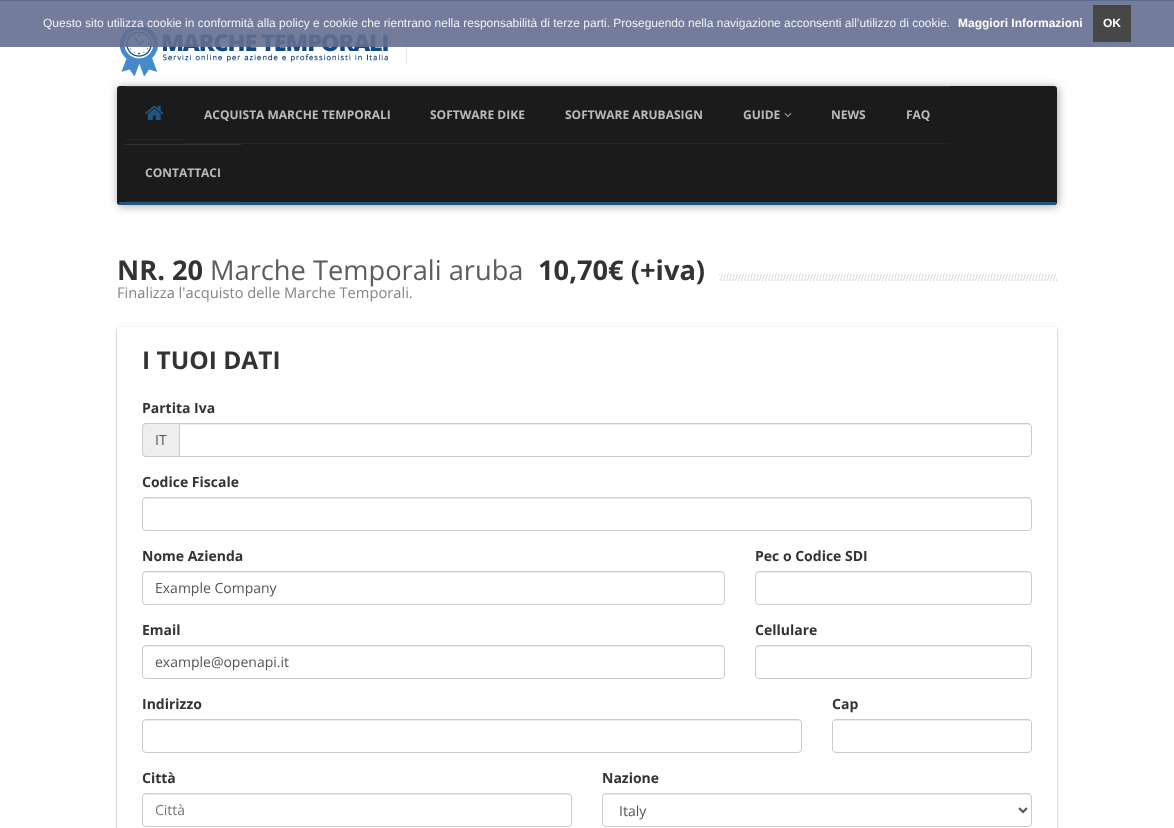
<?xml version="1.0" encoding="UTF-8"?>
<svg xmlns="http://www.w3.org/2000/svg" xmlns:xlink="http://www.w3.org/1999/xlink" width="1174" height="828">
  <rect width="100%" height="100%" fill="#ffffff" />
  <rect width="1174" height="1" fill="#24557f" />
  <image x="120" y="25" width="268" height="52" xlink:href="image1.png" />
  <rect x="406" y="24" width="1" height="40" fill="#e6e6e6" />
  <rect width="1174" height="47" fill="#646e90" fill-opacity="0.9" />
  <rect x="1093" y="5" width="38" height="37" fill="#474747" />
  <rect x="118" y="87" width="940" height="119" rx="3" fill="#1b1b1b" fill-opacity="0.4" filter="blur(5px)" />
  <rect x="117" y="86" width="940" height="119" rx="3" fill="#1b1b1b" />
  <rect x="125" y="144" width="116" height="1" fill="#323232" />
  <rect x="811" y="86" width="139" height="1" fill="#323232" />
  <rect x="410" y="86" width="401" height="1" fill="#323232" />
  <rect x="125" y="86" width="285" height="1" fill="#323232" />
  <rect x="119" y="202" width="937" height="3" fill="#24557f" />
  <rect x="125" y="139" width="59" height="1" fill="#242424" />
  <image x="145" y="105" width="19" height="15" xlink:href="image2.png" />
  <rect x="184" y="143" width="361" height="1" fill="#242424" />
  <rect x="545" y="143" width="405" height="1" fill="#242424" />
  <image x="784" y="113" width="8" height="4" xlink:href="image3.png" />
  <rect x="125" y="201" width="116" height="1" fill="#242424" />
  <image x="719" y="273" width="338" height="8" xlink:href="image4.png" />
  <rect x="117" y="328" width="940" height="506" rx="2.5" fill="#000000" fill-opacity="0.24" filter="blur(1px)" />
  <rect x="117" y="328" width="940" height="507" rx="2.5" fill="#000000" fill-opacity="0.12" filter="blur(1.5px)" />
  <rect x="117" y="327" width="940" height="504" rx="2.5" fill="#ffffff" />
  <path d="M 146 423 h 33 v 34 h -33 c -2 0 -4 -2 -4 -4 v -26 c 0 -2 2 -4 4 -4 z" fill="#eeeeee" />
  <path d="M 146 423 h 33 v 34 h -33 c -2 0 -4 -2 -4 -4 v -26 c 0 -2 2 -4 4 -4 z m 0 1 h 33 v 32 h -33 c -1.5 0 -3 -1.5 -3 -3 v -26 c 0 -1.5 1.5 -3 3 -3 z" fill="#cccccc" fill-rule="evenodd" />
  <path d="M 180 425 h 848 c 2 0 3 1 3 3 c 0 -2 -1 -4 -3 -4 h -848 z" fill="#ececec" />
  <path d="M 179.5 423.5 h 848.5 c 2 0 3.5 1.5 3.5 3.5 v 26 c 0 2 -1.5 3.5 -3.5 3.5 h -848.5 z" fill="none" stroke="#cccccc" />
  <path d="M 146 499 h 882 c 2 0 3 1 3 3 c 0 -2 -1 -4 -3 -4 h -882 c -2 0 -3 2 -3 4 c 0 -2 1 -3 3 -3 z" fill="#ececec" />
  <rect x="142.5" y="497.5" width="889" height="33" rx="3.5" fill="none" stroke="#cccccc" />
  <path d="M 146 573 h 575 c 2 0 3 1 3 3 v -1 c 0 -2 -1 -3 -3 -3 h -575 c -2 0 -3 1 -3 3 v 1 c 0 -2 1 -3 3 -3 z" fill="#ececec" />
  <rect x="142.5" y="571.5" width="582" height="33" rx="3.5" fill="none" stroke="#cccccc" />
  <path d="M 759 573 h 269 c 2 0 3 1 3 3 v -1 c 0 -2 -1 -3 -3 -3 h -269 c -2 0 -3 1 -3 3 v 1 c 0 -2 1 -3 3 -3 z" fill="#ececec" />
  <rect x="755.5" y="571.5" width="276" height="33" rx="3.5" fill="none" stroke="#cccccc" />
  <path d="M 146 647 h 575 c 2 0 3 1 3 3 v -1 c 0 -2 -1 -3 -3 -3 h -575 c -2 0 -3 1 -3 3 v 1 c 0 -2 1 -3 3 -3 z" fill="#ececec" />
  <rect x="142.5" y="645.5" width="582" height="33" rx="3.5" fill="none" stroke="#cccccc" />
  <path d="M 759 647 h 269 c 2 0 3 1 3 3 v -1 c 0 -2 -1 -3 -3 -3 h -269 c -2 0 -3 1 -3 3 v 1 c 0 -2 1 -3 3 -3 z" fill="#ececec" />
  <rect x="755.5" y="645.5" width="276" height="33" rx="3.5" fill="none" stroke="#cccccc" />
  <path d="M 146 721 h 652 c 2 0 3 1 3 3 v -1 c 0 -2 -1 -3 -3 -3 h -652 c -2 0 -3 1 -3 3 v 1 c 0 -2 1 -3 3 -3 z" fill="#ececec" />
  <rect x="142.5" y="719.5" width="659" height="33" rx="3.5" fill="none" stroke="#cccccc" />
  <path d="M 836 721 h 192 c 2 0 3 1 3 3 c 0 -2 -1 -4 -3 -4 h -192 c -2 0 -3 2 -3 4 c 0 -2 1 -3 3 -3 z" fill="#ececec" />
  <rect x="832.5" y="719.5" width="199" height="33" rx="3.5" fill="none" stroke="#cccccc" />
  <path d="M 146 795 h 422 c 2 0 3 1 3 3 c 0 -2 -1 -4 -3 -4 h -422 c -2 0 -3 2 -3 4 c 0 -2 1 -3 3 -3 z" fill="#ececec" />
  <rect x="142.5" y="793.5" width="429" height="33" rx="3.5" fill="none" stroke="#cccccc" />
  <path d="M 606 795 h 422 c 2 0 3 1 3 3 c 0 -2 -1 -4 -3 -4 h -422 c -2 0 -3 2 -3 4 c 0 -2 1 -3 3 -3 z" fill="#ececec" />
  <rect x="602.5" y="793.5" width="429" height="33" rx="3.5" fill="none" stroke="#cccccc" />
  <path d="M 1019 808 l 4 4 l 4 -4" fill="none" stroke="#555555" stroke-width="2" />
  <text x="43" y="27" style="font-family: Liberation Sans; font-size: 12px; fill: #f1f2f5">Questo sito utilizza cookie in conformità alla policy e cookie che rientrano nella responsabilità di terze parti. Proseguendo nella navigazione acconsenti all’utilizzo di cookie.</text>
  <text x="958" y="27" style="font-family: Liberation Sans; font-size: 12px; font-weight: bold; fill: #ffffff">Maggiori Informazioni</text>
  <text x="1103" y="27" style="font-family: Liberation Sans; font-size: 12px; font-weight: bold; fill: #ffffff">OK</text>
  <text x="204" y="119" style="font-family: Open Sans; font-size: 12px; font-weight: bold; fill: #bbbbbb">ACQUISTA MARCHE TEMPORALI</text>
  <text x="430" y="119" style="font-family: Open Sans; font-size: 12px; font-weight: bold; fill: #bbbbbb">SOFTWARE DIKE</text>
  <text x="565" y="119" style="font-family: Open Sans; font-size: 12px; font-weight: bold; fill: #bbbbbb">SOFTWARE ARUBASIGN</text>
  <text x="743" y="119" style="font-family: Open Sans; font-size: 12px; font-weight: bold; fill: #bbbbbb">GUIDE</text>
  <text x="831" y="119" style="font-family: Open Sans; font-size: 12px; font-weight: bold; fill: #bbbbbb">NEWS</text>
  <text x="906" y="119" style="font-family: Open Sans; font-size: 12px; font-weight: bold; fill: #bbbbbb">FAQ</text>
  <text x="145" y="177" style="font-family: Open Sans; font-size: 12px; font-weight: bold; fill: #bbbbbb">CONTATTACI</text>
  <text x="117" y="280" style="font-family: Open Sans; font-size: 27.25px; font-weight: bold; fill: #333333">NR. 20</text>
  <text x="210" y="280" style="font-family: Open Sans; font-size: 27.25px; fill: #5c5c5c">Marche Temporali aruba</text>
  <text x="538" y="280" style="font-family: Open Sans; font-size: 27.25px; font-weight: bold; fill: #333333">10,70€ (+iva)</text>
  <text x="117" y="298" style="font-family: Open Sans; font-size: 14.7px; fill: #858585">Finalizza l'acquisto delle Marche Temporali.</text>
  <text x="142" y="369" style="font-family: Open Sans; font-size: 24.5px; font-weight: bold; fill: #333333">I TUOI DATI</text>
  <text x="142" y="413" style="font-family: Open Sans; font-size: 14px; font-weight: bold; fill: #333333">Partita Iva</text>
  <text x="155" y="445" style="font-family: Open Sans; font-size: 14px; fill: #555555">IT</text>
  <text x="142" y="487" style="font-family: Open Sans; font-size: 14px; font-weight: bold; fill: #333333">Codice Fiscale</text>
  <text x="142" y="561" style="font-family: Open Sans; font-size: 14px; font-weight: bold; fill: #333333">Nome Azienda</text>
  <text x="155" y="593" style="font-family: Open Sans; font-size: 14px; fill: #555555">Example Company</text>
  <text x="755" y="561" style="font-family: Open Sans; font-size: 14px; font-weight: bold; fill: #333333">Pec o Codice SDI</text>
  <text x="142" y="635" style="font-family: Open Sans; font-size: 14px; font-weight: bold; fill: #333333">Email</text>
  <text x="155" y="667" style="font-family: Open Sans; font-size: 14px; fill: #555555">example@openapi.it</text>
  <text x="755" y="635" style="font-family: Open Sans; font-size: 14px; font-weight: bold; fill: #333333">Cellulare</text>
  <text x="142" y="709" style="font-family: Open Sans; font-size: 14px; font-weight: bold; fill: #333333">Indirizzo</text>
  <text x="832" y="709" style="font-family: Open Sans; font-size: 14px; font-weight: bold; fill: #333333">Cap</text>
  <text x="142" y="783" style="font-family: Open Sans; font-size: 14px; font-weight: bold; fill: #333333">Città</text>
  <text x="155" y="815" style="font-family: Open Sans; font-size: 14px; fill: #777777">Città</text>
  <text x="602" y="783" style="font-family: Open Sans; font-size: 14px; font-weight: bold; fill: #333333">Nazione</text>
  <text x="619" y="816" style="font-family: Open Sans; font-size: 14px; fill: #555555">Italy</text>
</svg>
